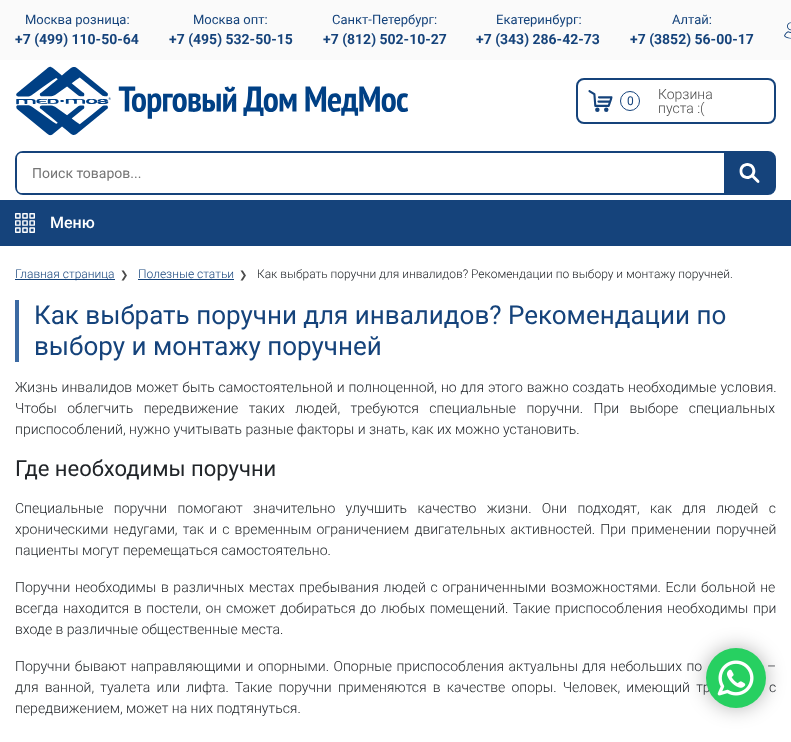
<?xml version="1.0" encoding="UTF-8"?>
<svg xmlns="http://www.w3.org/2000/svg" xmlns:xlink="http://www.w3.org/1999/xlink" width="791" height="742">
  <rect width="100%" height="100%" fill="#ffffff" />
  <rect width="791" height="60" fill="#fafafa" />
  <image x="784" y="22" width="7" height="17" xlink:href="image1.png" />
  <image x="16" y="66" width="392" height="70" xlink:href="image2.png" />
  <rect x="577" y="79" width="198" height="44" rx="7" fill="none" stroke="#15437b" stroke-width="2" />
  <image x="588" y="90" width="25" height="22" xlink:href="image3.png" />
  <circle cx="630" cy="101" r="9.5" fill="none" stroke="#15437b" />
  <rect x="16" y="152" width="759" height="42" rx="7" fill="#15437b" stroke="#15437b" stroke-width="2" />
  <path d="M 22 153 h 702 v 40 h -702 c -3 0 -5 -2 -5 -5 v -30 c 0 -3 2 -5 5 -5 z" fill="#ffffff" />
  <image x="739" y="163" width="21" height="20" xlink:href="image4.png" />
  <rect y="200" width="791" height="46" fill="#15437b" />
  <image x="15" y="213" width="20" height="20" xlink:href="image5.png" />
  <rect x="15" y="279" width="100" height="1" fill="#15437b" />
  <rect x="138" y="279" width="96" height="1" fill="#15437b" />
  <rect x="15" y="300" width="4" height="62" fill="#3c6aa3" />
  <rect x="706" y="648" width="60" height="60" rx="30" fill="#000000" fill-opacity="0.3" filter="blur(10px)" />
  <text x="25" y="24" style="font-family: Roboto; font-size: 13px; fill: #15437b">Москва розница:</text>
  <text x="15" y="44" style="font-family: Roboto; font-size: 14px; font-weight: bold; fill: #15437b">+7 (499) 110-50-64</text>
  <text x="193" y="24" style="font-family: Roboto; font-size: 13px; fill: #15437b">Москва опт:</text>
  <text x="169" y="44" style="font-family: Roboto; font-size: 14px; font-weight: bold; fill: #15437b">+7 (495) 532-50-15</text>
  <text x="332" y="24" style="font-family: Roboto; font-size: 13px; fill: #15437b">Санкт-Петербург:</text>
  <text x="323" y="44" style="font-family: Roboto; font-size: 14px; font-weight: bold; fill: #15437b">+7 (812) 502-10-27</text>
  <text x="496" y="24" style="font-family: Roboto; font-size: 13px; fill: #15437b">Екатеринбург:</text>
  <text x="476" y="44" style="font-family: Roboto; font-size: 14px; font-weight: bold; fill: #15437b">+7 (343) 286-42-73</text>
  <text x="672" y="24" style="font-family: Roboto; font-size: 13px; fill: #15437b">Алтай:</text>
  <text x="630" y="44" style="font-family: Roboto; font-size: 14px; font-weight: bold; fill: #15437b">+7 (3852) 56-00-17</text>
  <text x="627" y="105" style="font-family: Roboto; font-size: 12px; fill: #15437b">0</text>
  <text x="658" y="99" style="font-family: Roboto; font-size: 14px; font-weight: 300; fill: #4a4a4a">Корзина</text>
  <text x="658" y="113" style="font-family: Roboto; font-size: 14px; font-weight: 300; fill: #4a4a4a">пуста :(</text>
  <text x="32" y="178" style="font-family: Roboto; font-size: 14px; fill: #757575">Поиск товаров...</text>
  <text x="50" y="228" style="font-family: Roboto; font-size: 16px; font-weight: 500; fill: #ffffff">Меню</text>
  <text x="15" y="278" style="font-family: Roboto; font-size: 12px; font-weight: 300; fill: #15437b">Главная страница</text>
  <text x="120" y="278" style="font-family: DejaVu Sans; font-size: 10px; fill: #4a4a4a">❯</text>
  <text x="138" y="278" style="font-family: Roboto; font-size: 12px; font-weight: 300; fill: #15437b">Полезные статьи</text>
  <text x="239" y="278" style="font-family: DejaVu Sans; font-size: 10px; fill: #4a4a4a">❯</text>
  <text x="257" y="278" style="font-family: Roboto; font-size: 12px; font-weight: 300; fill: #212529">Как выбрать поручни для инвалидов? Рекомендации по выбору и монтажу поручней.</text>
  <text x="34" y="324" style="font-family: Roboto; font-size: 26px; fill: #15437b">Как выбрать поручни для инвалидов? Рекомендации по</text>
  <text x="34" y="355" style="font-family: Roboto; font-size: 26px; fill: #15437b">выбору и монтажу поручней</text>
  <text x="15" y="392" word-spacing="0.5" style="font-family: Roboto; font-size: 14px; font-weight: 300; fill: #212529">Жизнь инвалидов может быть самостоятельной и полноценной, но для этого важно создать необходимые условия.</text>
  <text x="15" y="413" word-spacing="7" style="font-family: Roboto; font-size: 14px; font-weight: 300; fill: #212529">Чтобы облегчить передвижение таких людей, требуются специальные поручни. При выборе специальных</text>
  <text x="15" y="434" style="font-family: Roboto; font-size: 14px; font-weight: 300; fill: #212529">приспособлений, нужно учитывать разные факторы и знать, как их можно установить.</text>
  <text x="15" y="476" style="font-family: Roboto; font-size: 22px; fill: #212529">Где необходимы поручни</text>
  <text x="15" y="513" word-spacing="6.9" style="font-family: Roboto; font-size: 14px; font-weight: 300; fill: #212529">Специальные поручни помогают значительно улучшить качество жизни. Они подходят, как для людей с</text>
  <text x="15" y="534" word-spacing="1.75" style="font-family: Roboto; font-size: 14px; font-weight: 300; fill: #212529">хроническими недугами, так и с временным ограничением двигательных активностей. При применении поручней</text>
  <text x="15" y="555" style="font-family: Roboto; font-size: 14px; font-weight: 300; fill: #212529">пациенты могут перемещаться самостоятельно.</text>
  <text x="15" y="592" word-spacing="1.25" style="font-family: Roboto; font-size: 14px; font-weight: 300; fill: #212529">Поручни необходимы в различных местах пребывания людей с ограниченными возможностями. Если больной не</text>
  <text x="15" y="613" word-spacing="1.2" style="font-family: Roboto; font-size: 14px; font-weight: 300; fill: #212529">всегда находится в постели, он сможет добираться до любых помещений. Такие приспособления необходимы при</text>
  <text x="15" y="634" style="font-family: Roboto; font-size: 14px; font-weight: 300; fill: #212529">входе в различные общественные места.</text>
  <text x="15" y="671" word-spacing="1" style="font-family: Roboto; font-size: 14px; font-weight: 300; fill: #212529">Поручни бывают направляющими и опорными. Опорные приспособления актуальны для небольших по</text>
  <text x="767" y="671" word-spacing="1" style="font-family: Roboto; font-size: 14px; font-weight: 300; fill: #212529">–</text>
  <text x="15" y="692" word-spacing="2.75" style="font-family: Roboto; font-size: 14px; font-weight: 300; fill: #212529">для ванной, туалета или лифта. Такие поручни применяются в качестве опоры. Человек, имеющий тр</text>
  <text x="769" y="692" word-spacing="2.75" style="font-family: Roboto; font-size: 14px; font-weight: 300; fill: #212529">с</text>
  <text x="15" y="713" style="font-family: Roboto; font-size: 14px; font-weight: 300; fill: #212529">передвижением, может на них подтянуться.</text>
  <circle cx="736" cy="678" r="30" fill="#27d061" />
  <image x="717" y="660" width="37" height="36" xlink:href="image6.png" />
</svg>
